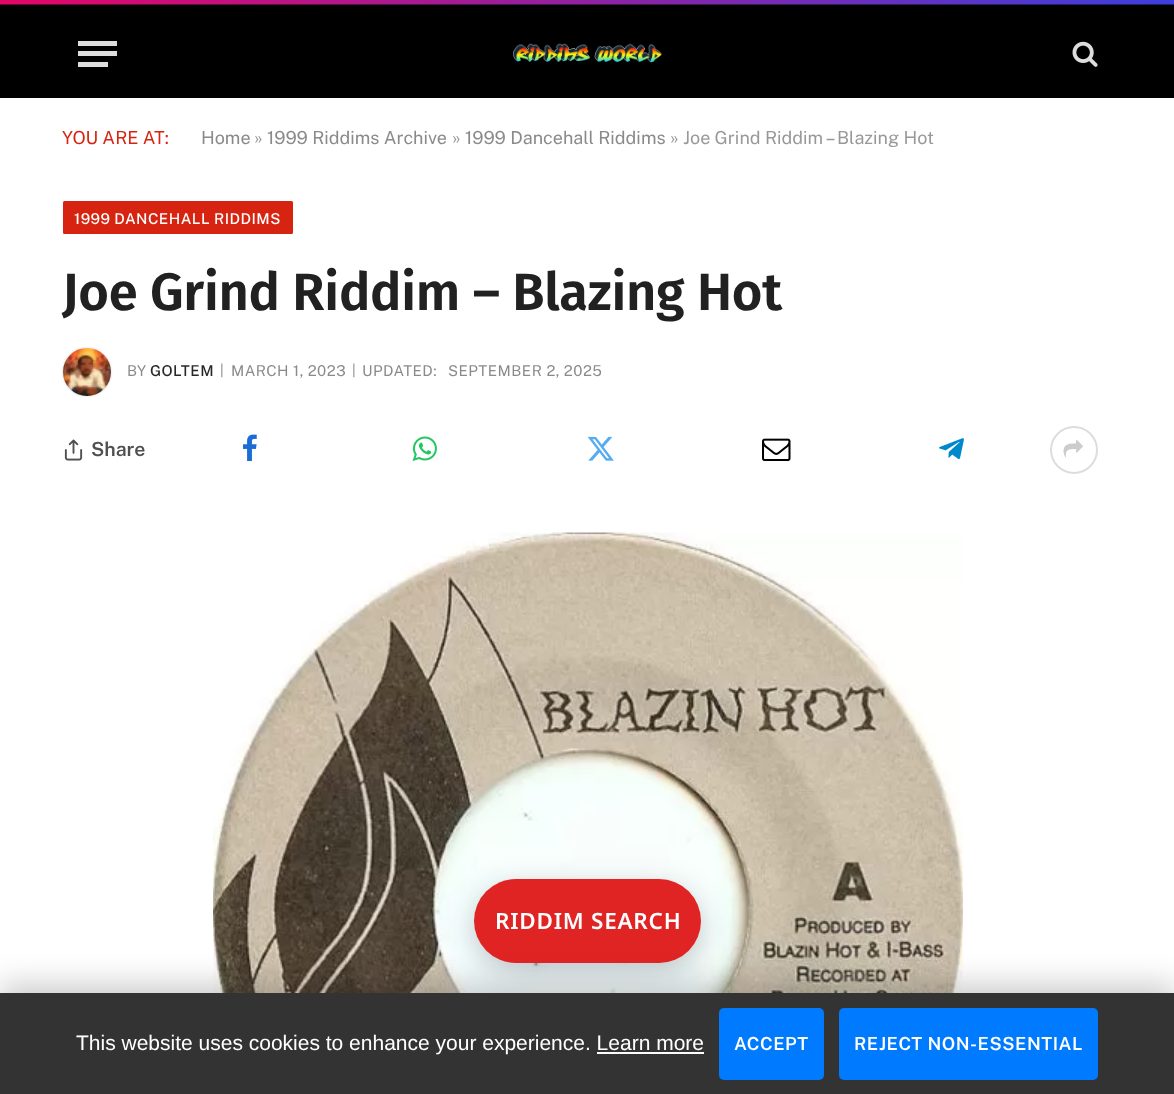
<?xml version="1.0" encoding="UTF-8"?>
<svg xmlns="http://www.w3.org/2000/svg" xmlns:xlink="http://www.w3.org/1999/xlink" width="1174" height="1094">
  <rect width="100%" height="100%" fill="#ffffff" />
  <rect y="4" width="1174" height="94" fill="#000000" />
  <image x="0" y="0" width="1174" height="5" xlink:href="image1.png" />
  <rect x="78" y="62" width="30" height="5" fill="#dddddd" />
  <rect x="78" y="41" width="39" height="5" fill="#dddddd" />
  <rect x="78" y="51" width="39" height="5" fill="#dddddd" />
  <image x="513" y="43" width="149" height="20" xlink:href="image2.png" />
  <image x="1072" y="41" width="26" height="26" xlink:href="image3.png" />
  <rect x="63" y="201" width="230" height="33" rx="1.5" fill="#d62411" />
  <rect x="63" y="348" width="48" height="48" rx="24" fill="#000000" fill-opacity="0.2" filter="blur(1px)" />
  <image x="63" y="348" width="48" height="48" xlink:href="image4.png" />
  <image x="64" y="439" width="19" height="22" xlink:href="image5.png" />
  <image x="243" y="434" width="14" height="27" xlink:href="image6.png" />
  <image x="412" y="436" width="25" height="26" xlink:href="image7.png" />
  <image x="587" y="436" width="27" height="25" xlink:href="image8.png" />
  <image x="762" y="438" width="29" height="23" xlink:href="image9.png" />
  <image x="939" y="438" width="25" height="21" xlink:href="image10.png" />
  <circle cx="1074" cy="450" r="23" fill="none" stroke="#dddddd" stroke-width="2" />
  <image x="1063" y="440" width="20" height="18" xlink:href="image11.png" />
  <image x="213" y="532" width="750" height="461" xlink:href="image12.png" />
  <rect x="474" y="888" width="227" height="84" rx="42" fill="#111827" fill-opacity="0.25" filter="blur(15px)" />
  <rect x="474" y="879" width="227" height="84" rx="42" fill="#e02424" />
  <rect y="984" width="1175" height="102" fill="#000000" fill-opacity="0.2" filter="blur(15px)" />
  <rect y="993" width="1174" height="101" fill="#333333" />
  <rect x="719" y="1008" width="105" height="72" rx="5" fill="#007bff" />
  <rect x="839" y="1008" width="259" height="72" rx="5" fill="#007bff" />
  <rect x="597" y="1052" width="107" height="2" fill="#ffffff" />
  <text x="62" y="144" style="font-family: Public Sans; font-size: 18px; fill: #d62411">YOU ARE AT:</text>
  <text x="201" y="144" style="font-family: Public Sans; font-size: 18px; fill: #8a8a8a">Home</text>
  <text x="254" y="144" style="font-family: Public Sans; font-size: 18px; fill: #999999">»</text>
  <text x="267" y="144" style="font-family: Public Sans; font-size: 18px; fill: #8a8a8a">1999 Riddims Archive</text>
  <text x="452" y="144" style="font-family: Public Sans; font-size: 18px; fill: #999999">»</text>
  <text x="465" y="144" style="font-family: Public Sans; font-size: 18px; fill: #8a8a8a">1999 Dancehall Riddims</text>
  <text x="670" y="144" style="font-family: Public Sans; font-size: 18px; fill: #999999">» Joe Grind Riddim – Blazing Hot</text>
  <text x="74" y="224" style="font-family: Public Sans; font-size: 15px; font-weight: 500; letter-spacing: 0.45px; fill: #ffffff">1999 DANCEHALL RIDDIMS</text>
  <text x="62" y="310" style="font-family: Fira Sans; font-size: 52.5px; font-weight: 600; letter-spacing: -0.25px; fill: #212121">Joe Grind Riddim – Blazing Hot</text>
  <text x="127" y="376" style="font-family: Public Sans; font-size: 15px; letter-spacing: 0.45px; fill: #8a8a8a">BY</text>
  <text x="150" y="376" style="font-family: Public Sans; font-size: 15px; font-weight: 500; letter-spacing: 0.45px; fill: #282828">GOLTEM</text>
  <text x="220" y="375" style="font-family: Public Sans; font-size: 14px; fill: #8a8a8a">|</text>
  <text x="231" y="376" style="font-family: Public Sans; font-size: 15px; letter-spacing: 0.45px; fill: #8a8a8a">MARCH 1, 2023</text>
  <text x="352" y="375" style="font-family: Public Sans; font-size: 14px; fill: #8a8a8a">|</text>
  <text x="362" y="376" style="font-family: Public Sans; font-size: 15px; letter-spacing: 0.45px; fill: #8a8a8a">UPDATED:</text>
  <text x="448" y="376" style="font-family: Public Sans; font-size: 15px; letter-spacing: 0.45px; fill: #8a8a8a">SEPTEMBER 2, 2025</text>
  <text x="91" y="456" style="font-family: Public Sans; font-size: 19.5px; font-weight: 600; fill: #505050">Share</text>
  <text x="495" y="929" style="font-family: Noto Sans; font-size: 22.5px; font-weight: 600; letter-spacing: 0.75px; fill: #ffffff">RIDDIM SEARCH</text>
  <text x="76" y="1050" style="font-family: Liberation Sans; font-size: 21px; fill: #ffffff">This website uses cookies to enhance your experience. Learn more</text>
  <text x="734" y="1050" style="font-family: Public Sans; font-size: 18px; font-weight: 600; letter-spacing: 0.5px; fill: #ffffff">ACCEPT</text>
  <text x="854" y="1050" style="font-family: Public Sans; font-size: 18px; font-weight: 600; letter-spacing: 0.5px; fill: #ffffff">REJECT NON-ESSENTIAL</text>
</svg>
